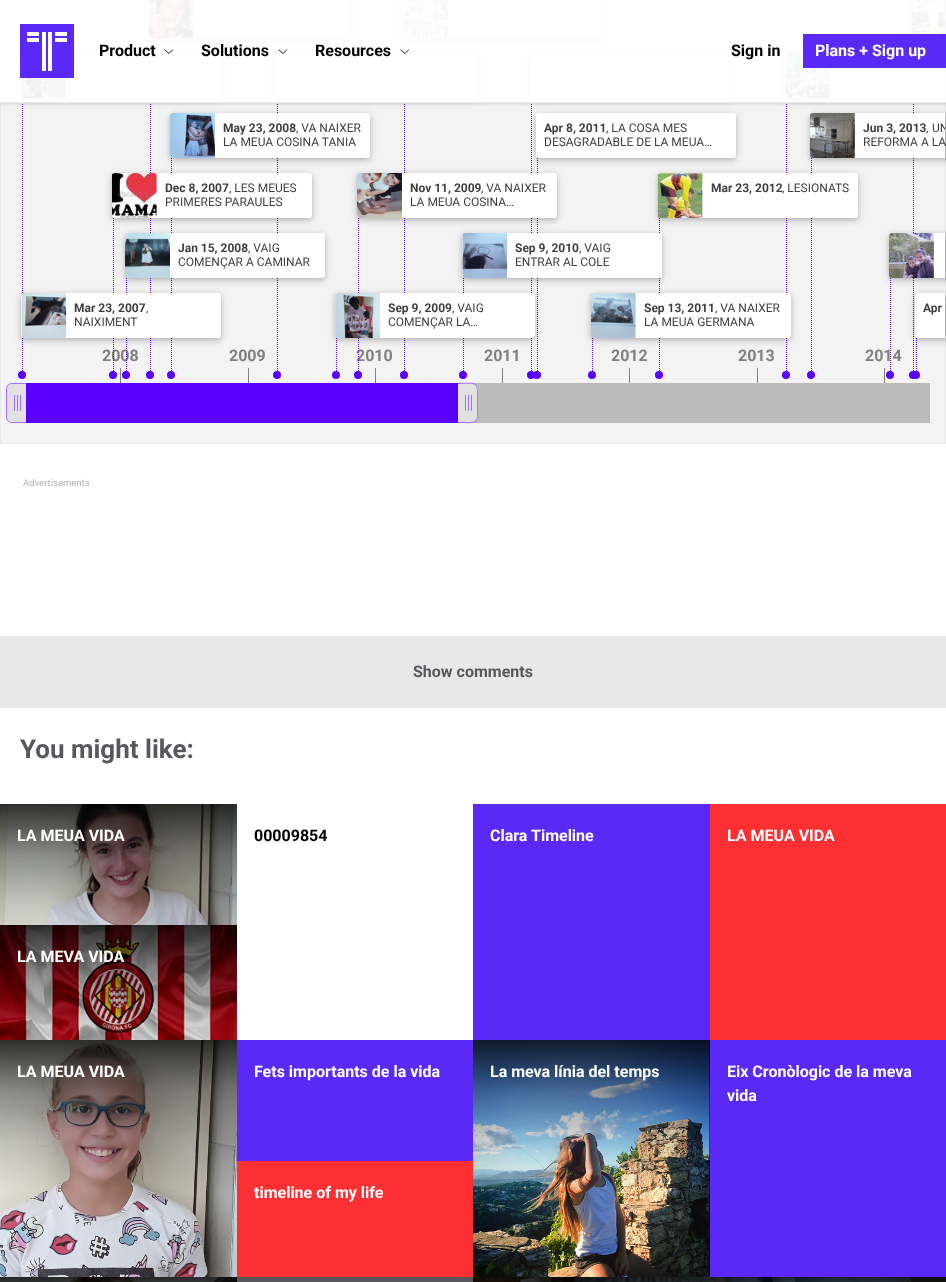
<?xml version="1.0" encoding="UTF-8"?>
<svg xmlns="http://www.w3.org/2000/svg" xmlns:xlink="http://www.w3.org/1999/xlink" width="946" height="1282">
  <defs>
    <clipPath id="clip1"><rect x="863" y="121" width="82" height="28" /></clipPath>
    <clipPath id="clip2"><rect x="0" y="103" width="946" height="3" /></clipPath>
  </defs>
  <rect width="100%" height="100%" fill="#ffffff" />
  <rect x="0.5" y="-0.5" width="945" height="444" fill="none" stroke="#e8e8e9" />
  <rect x="1" width="944" height="443" fill="#f3f3f3" />
  <path d="M 22.5 98 v 277" fill="none" stroke="#5a00ff" stroke-dasharray="1 1" />
  <path d="M 150.5 38 v 337" fill="none" stroke="#5a00ff" stroke-dasharray="1 1" />
  <rect x="21" y="55" width="200" height="45" rx="3" fill="#000000" fill-opacity="0.16" filter="blur(2.5px)" />
  <circle cx="22" cy="375" r="4" fill="#5a00ff" />
  <rect x="149" y="-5" width="200" height="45" rx="3" fill="#000000" fill-opacity="0.16" filter="blur(2.5px)" />
  <circle cx="150" cy="375" r="4" fill="#5a00ff" />
  <path d="M 277.5 98 v 277" fill="none" stroke="#5a00ff" stroke-dasharray="1 1" />
  <path d="M 404.5 38 v 337" fill="none" stroke="#5a00ff" stroke-dasharray="1 1" />
  <rect x="276" y="55" width="200" height="45" rx="3" fill="#000000" fill-opacity="0.16" filter="blur(2.5px)" />
  <circle cx="277" cy="375" r="4" fill="#5a00ff" />
  <rect x="403" y="-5" width="200" height="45" rx="3" fill="#000000" fill-opacity="0.16" filter="blur(2.5px)" />
  <circle cx="404" cy="375" r="4" fill="#5a00ff" />
  <path d="M 531.5 98 v 277" fill="none" stroke="#5a00ff" stroke-dasharray="1 1" />
  <rect x="530" y="55" width="200" height="45" rx="3" fill="#000000" fill-opacity="0.16" filter="blur(2.5px)" />
  <path d="M 537.5 158 v 217" fill="none" stroke="#5a00ff" stroke-dasharray="1 1" />
  <circle cx="537" cy="375" r="4" fill="#5a00ff" />
  <circle cx="531" cy="375" r="4" fill="#5a00ff" />
  <path d="M 916.5 338 v 37" fill="none" stroke="#5a00ff" stroke-dasharray="1 1" />
  <circle cx="916" cy="375" r="4" fill="#5a00ff" />
  <path d="M 913.5 38 v 337" fill="none" stroke="#5a00ff" stroke-dasharray="1 1" />
  <path d="M 786.5 98 v 277" fill="none" stroke="#5a00ff" stroke-dasharray="1 1" />
  <path d="M 811.5 158 v 217" fill="none" stroke="#5a00ff" stroke-dasharray="1 1" />
  <rect x="810" y="115" width="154" height="45" rx="3" fill="#000000" fill-opacity="0.12" filter="blur(5px)" />
  <rect x="810" y="115" width="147" height="45" rx="3" fill="#000000" fill-opacity="0.16" filter="blur(2.5px)" />
  <path d="M 813 113 h 132 v 45 h -132 c -1.5 0 -3 -1.5 -3 -3 v -39 c 0 -1.5 1.5 -3 3 -3 z" fill="#ffffff" />
  <image x="810" y="113" width="45" height="45" xlink:href="image7.png" />
  <rect x="785" y="55" width="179" height="45" rx="3" fill="#000000" fill-opacity="0.12" filter="blur(5px)" />
  <rect x="785" y="55" width="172" height="45" rx="3" fill="#000000" fill-opacity="0.16" filter="blur(2.5px)" />
  <path d="M 788 53 h 157 v 45 h -157 c -1.5 0 -3 -1.5 -3 -3 v -39 c 0 -1.5 1.5 -3 3 -3 z" fill="#ffffff" />
  <rect x="912" y="-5" width="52" height="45" rx="3" fill="#000000" fill-opacity="0.12" filter="blur(5px)" />
  <rect x="912" y="-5" width="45" height="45" rx="3" fill="#000000" fill-opacity="0.16" filter="blur(2.5px)" />
  <image x="912" y="0" width="33" height="34" xlink:href="image4.png" />
  <circle cx="913" cy="375" r="4" fill="#5a00ff" />
  <path d="M 171.5 158 v 217" fill="none" stroke="#5a00ff" stroke-dasharray="1 1" />
  <rect x="170" y="115" width="200" height="45" rx="3" fill="#000000" fill-opacity="0.16" filter="blur(2.5px)" />
  <circle cx="171" cy="375" r="4" fill="#5a00ff" />
  <rect x="536" y="115" width="200" height="45" rx="3" fill="#000000" fill-opacity="0.16" filter="blur(2.5px)" />
  <image x="785" y="53" width="45" height="45" xlink:href="image6.png" />
  <circle cx="786" cy="375" r="4" fill="#5a00ff" />
  <circle cx="811" cy="375" r="4" fill="#5a00ff" />
  <path d="M 659.5 218 v 157" fill="none" stroke="#5a00ff" stroke-dasharray="1 1" />
  <rect x="658" y="175" width="200" height="45" rx="3" fill="#000000" fill-opacity="0.16" filter="blur(2.5px)" />
  <circle cx="659" cy="375" r="4" fill="#5a00ff" />
  <path d="M 463.5 278 v 97" fill="none" stroke="#5a00ff" stroke-dasharray="1 1" />
  <rect x="462" y="235" width="200" height="45" rx="3" fill="#000000" fill-opacity="0.16" filter="blur(2.5px)" />
  <circle cx="463" cy="375" r="4" fill="#5a00ff" />
  <path d="M 336.5 338 v 37" fill="none" stroke="#5a00ff" stroke-dasharray="1 1" />
  <circle cx="336" cy="375" r="4" fill="#5a00ff" />
  <path d="M 592.5 338 v 37" fill="none" stroke="#5a00ff" stroke-dasharray="1 1" />
  <rect x="591" y="295" width="200" height="45" rx="3" fill="#000000" fill-opacity="0.12" filter="blur(5px)" />
  <rect x="591" y="295" width="200" height="45" rx="3" fill="#000000" fill-opacity="0.16" filter="blur(2.5px)" />
  <circle cx="592" cy="375" r="4" fill="#5a00ff" />
  <rect x="915" y="295" width="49" height="45" rx="3" fill="#000000" fill-opacity="0.12" filter="blur(5px)" />
  <rect x="915" y="295" width="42" height="45" rx="3" fill="#000000" fill-opacity="0.16" filter="blur(2.5px)" />
  <path d="M 918 293 h 27 v 45 h -27 c -1.5 0 -3 -1.5 -3 -3 v -39 c 0 -1.5 1.5 -3 3 -3 z" fill="#ffffff" />
  <rect x="120" y="368" width="1" height="15" fill="#808080" />
  <rect x="248" y="368" width="1" height="15" fill="#808080" />
  <rect x="375" y="368" width="1" height="15" fill="#808080" />
  <rect x="502" y="368" width="1" height="15" fill="#808080" />
  <rect x="629" y="368" width="1" height="15" fill="#808080" />
  <rect x="757" y="368" width="1" height="15" fill="#808080" />
  <rect x="884" y="368" width="1" height="15" fill="#808080" />
  <path d="M 12 383 h 14 v 40 h -14 c -3.5 0 -6 -2.5 -6 -6 v -28 c 0 -3.5 2.5 -6 6 -6 z" fill="#e1e1e1" />
  <path d="M 12 383 h 14 v 40 h -14 c -3 0 -6 -3 -6 -6 v -28 c 0 -3 3 -6 6 -6 z m 0 1 h 14 v 38 h -14 c -3 0 -5 -2 -5 -5 v -28 c 0 -3 2 -5 5 -5 z" fill="#a370ff" fill-rule="evenodd" />
  <rect x="14" y="395" width="1" height="16" fill="#a370ff" />
  <rect x="17" y="395" width="1" height="16" fill="#a370ff" />
  <rect x="20" y="395" width="1" height="16" fill="#a370ff" />
  <rect x="26" y="383" width="432" height="40" fill="#5a00ff" />
  <rect x="472" y="383" width="458" height="40" fill="#bbbbbb" />
  <path d="M 458 383 h 14 c 3.5 0 6 2.5 6 6 v 28 c 0 3.5 -2.5 6 -6 6 h -14 z" fill="#e1e1e1" />
  <path d="M 458 383 c 21 0 20 -3 20 20 c 0 23 1 20 -20 20 z m 0 1 c 21 0 19 -3 19 19 c 0 22 2 19 -19 19 z" fill="#a370ff" fill-rule="evenodd" />
  <rect x="465" y="395" width="1" height="16" fill="#a370ff" />
  <rect x="468" y="395" width="1" height="16" fill="#a370ff" />
  <rect x="471" y="395" width="1" height="16" fill="#a370ff" />
  <rect y="636" width="946" height="72" fill="#e8e8e9" />
  <image x="0" y="804" width="237" height="121" xlink:href="image17.png" />
  <image x="0" y="925" width="237" height="115" xlink:href="image18.png" />
  <rect x="473" y="804" width="237" height="236" fill="#5b29f5" />
  <rect x="710" y="804" width="236" height="236" fill="#fc3033" />
  <image x="0" y="1040" width="237" height="237" xlink:href="image19.png" />
  <rect x="237" y="1040" width="236" height="121" fill="#5b29f5" />
  <rect x="237" y="1161" width="236" height="116" fill="#fc3033" />
  <image x="473" y="1040" width="237" height="237" xlink:href="image20.png" />
  <rect x="710" y="1040" width="236" height="237" fill="#5b29f5" />
  <image x="0" y="1277" width="237" height="5" xlink:href="image21.png" />
  <rect x="237" y="1277" width="236" height="5" fill="#57575c" />
  <image x="473" y="1277" width="237" height="5" xlink:href="image22.png" />
  <image x="710" y="1277" width="236" height="5" xlink:href="image23.png" />
  <text x="863" y="132" style="font-family: Roboto; font-size: 12px; font-weight: bold; fill: #3f3f42">Jun 3, 2013</text>
  <text x="926" y="132" style="font-family: Roboto; font-size: 12px; fill: #3f3f42">,</text>
  <g clip-path="url(#clip1)">
    <text x="932" y="132" style="font-family: Roboto; font-size: 12px; fill: #3f3f42">UN</text>
  </g>
  <text x="863" y="146" style="font-family: Roboto; font-size: 12px; fill: #3f3f42">REFORMA A LA</text>
  <text x="923" y="312" style="font-family: Roboto; font-size: 12px; font-weight: bold; fill: #3f3f42">Apr</text>
  <text x="102" y="361" style="font-family: Roboto; font-size: 16px; font-weight: bold; fill: #808080">2008</text>
  <path d="M 113.5 218 v 157" fill="none" stroke="#5a00ff" stroke-dasharray="1 1" />
  <rect x="112" y="175" width="200" height="45" rx="3" fill="#000000" fill-opacity="0.16" filter="blur(2.5px)" />
  <path d="M 126.5 278 v 97" fill="none" stroke="#5a00ff" stroke-dasharray="1 1" />
  <rect x="125" y="235" width="200" height="45" rx="3" fill="#000000" fill-opacity="0.16" filter="blur(2.5px)" />
  <rect x="21" y="295" width="200" height="45" rx="3" fill="#000000" fill-opacity="0.16" filter="blur(2.5px)" />
  <rect x="21" y="295" width="200" height="45" rx="3" fill="#000000" fill-opacity="0.12" filter="blur(5px)" />
  <rect x="21" y="293" width="200" height="45" rx="3" fill="#ffffff" />
  <rect x="125" y="235" width="200" height="45" rx="3" fill="#000000" fill-opacity="0.12" filter="blur(5px)" />
  <rect x="125" y="233" width="200" height="45" rx="3" fill="#ffffff" />
  <image x="125" y="233" width="45" height="45" xlink:href="image11.png" />
  <rect x="112" y="175" width="200" height="45" rx="3" fill="#000000" fill-opacity="0.12" filter="blur(5px)" />
  <rect x="112" y="173" width="200" height="45" rx="3" fill="#ffffff" />
  <image x="112" y="173" width="45" height="45" xlink:href="image8.png" />
  <rect x="170" y="115" width="200" height="45" rx="3" fill="#000000" fill-opacity="0.12" filter="blur(5px)" />
  <rect x="170" y="113" width="200" height="45" rx="3" fill="#ffffff" />
  <rect x="276" y="55" width="200" height="45" rx="3" fill="#000000" fill-opacity="0.12" filter="blur(5px)" />
  <image x="170" y="113" width="45" height="45" xlink:href="image5.png" />
  <rect x="21" y="55" width="200" height="45" rx="3" fill="#000000" fill-opacity="0.12" filter="blur(5px)" />
  <rect x="21" y="53" width="200" height="45" rx="3" fill="#ffffff" />
  <rect x="149" y="-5" width="200" height="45" rx="3" fill="#000000" fill-opacity="0.12" filter="blur(5px)" />
  <rect x="276" y="53" width="200" height="45" rx="3" fill="#ffffff" />
  <rect x="403" y="-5" width="200" height="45" rx="3" fill="#000000" fill-opacity="0.12" filter="blur(5px)" />
  <rect x="403" y="-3" width="200" height="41" rx="3" fill="#ffffff" />
  <image x="403" y="0" width="45" height="38" xlink:href="image3.png" />
  <rect x="149" y="-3" width="200" height="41" rx="3" fill="#ffffff" />
  <image x="148" y="0" width="46" height="38" xlink:href="image2.png" />
  <image x="21" y="78" width="46" height="20" xlink:href="image1.png" />
  <text x="223" y="146" style="font-family: Roboto; font-size: 12px; fill: #3f3f42">LA MEUA COSINA TANIA</text>
  <text x="296" y="132" style="font-family: Roboto; font-size: 12px; fill: #3f3f42">, VA NAIXER</text>
  <text x="223" y="132" style="font-family: Roboto; font-size: 12px; font-weight: bold; fill: #3f3f42">May 23, 2008</text>
  <text x="165" y="206" style="font-family: Roboto; font-size: 12px; fill: #3f3f42">PRIMERES PARAULES</text>
  <text x="165" y="192" style="font-family: Roboto; font-size: 12px; font-weight: bold; fill: #3f3f42">Dec 8, 2007</text>
  <text x="229" y="192" style="font-family: Roboto; font-size: 12px; fill: #3f3f42">, LES MEUES</text>
  <text x="178" y="266" style="font-family: Roboto; font-size: 12px; fill: #3f3f42">COMENÇAR A CAMINAR</text>
  <text x="248" y="252" style="font-family: Roboto; font-size: 12px; fill: #3f3f42">, VAIG</text>
  <text x="178" y="252" style="font-family: Roboto; font-size: 12px; font-weight: bold; fill: #3f3f42">Jan 15, 2008</text>
  <image x="21" y="293" width="46" height="45" xlink:href="image14.png" />
  <text x="74" y="326" style="font-family: Roboto; font-size: 12px; fill: #3f3f42">NAIXIMENT</text>
  <text x="74" y="312" style="font-family: Roboto; font-size: 12px; font-weight: bold; fill: #3f3f42">Mar 23, 2007</text>
  <text x="146" y="312" style="font-family: Roboto; font-size: 12px; fill: #3f3f42">,</text>
  <circle cx="113" cy="375" r="4" fill="#5a00ff" />
  <circle cx="126" cy="375" r="4" fill="#5a00ff" />
  <text x="229" y="361" style="font-family: Roboto; font-size: 16px; font-weight: bold; fill: #808080">2009</text>
  <text x="356" y="361" style="font-family: Roboto; font-size: 16px; font-weight: bold; fill: #808080">2010</text>
  <path d="M 358.5 218 v 157" fill="none" stroke="#5a00ff" stroke-dasharray="1 1" />
  <rect x="357" y="175" width="200" height="45" rx="3" fill="#000000" fill-opacity="0.16" filter="blur(2.5px)" />
  <rect x="335" y="295" width="200" height="45" rx="3" fill="#000000" fill-opacity="0.16" filter="blur(2.5px)" />
  <rect x="335" y="295" width="200" height="45" rx="3" fill="#000000" fill-opacity="0.12" filter="blur(5px)" />
  <rect x="335" y="293" width="200" height="45" rx="3" fill="#ffffff" />
  <rect x="462" y="235" width="200" height="45" rx="3" fill="#000000" fill-opacity="0.12" filter="blur(5px)" />
  <rect x="462" y="233" width="200" height="45" rx="3" fill="#ffffff" />
  <image x="462" y="233" width="46" height="45" xlink:href="image12.png" />
  <rect x="357" y="175" width="200" height="45" rx="3" fill="#000000" fill-opacity="0.12" filter="blur(5px)" />
  <rect x="357" y="173" width="200" height="45" rx="3" fill="#ffffff" />
  <rect x="536" y="115" width="200" height="45" rx="3" fill="#000000" fill-opacity="0.12" filter="blur(5px)" />
  <rect x="536" y="113" width="200" height="45" rx="3" fill="#ffffff" />
  <rect x="530" y="55" width="200" height="45" rx="3" fill="#000000" fill-opacity="0.12" filter="blur(5px)" />
  <rect x="530" y="53" width="200" height="45" rx="3" fill="#ffffff" />
  <g clip-path="url(#clip2)">
    <rect y="1" width="946" height="103" fill="#000000" fill-opacity="0.1" filter="blur(2px)" />
  </g>
  <rect width="946" height="102" fill="#ffffff" fill-opacity="0.94" />
  <rect x="803" y="34" width="143" height="34" fill="#5b29f5" />
  <text x="815" y="56" style="font-family: Roboto; font-size: 16px; font-weight: bold; fill: #ffffff">Plans + Sign up</text>
  <text x="731" y="56" style="font-family: Roboto; font-size: 16px; font-weight: bold; fill: #000000">Sign in</text>
  <path d="M 401 50 l 4 3.5 l 3.5 -3.5" fill="none" stroke="#000000" stroke-width="0.9" stroke-linecap="square" />
  <text x="315" y="56" style="font-family: Roboto; font-size: 16px; font-weight: bold; fill: #000000">Resources</text>
  <path d="M 279 50 l 4 3.5 l 3.5 -3.5" fill="none" stroke="#000000" stroke-width="0.9" stroke-linecap="square" />
  <text x="201" y="56" style="font-family: Roboto; font-size: 16px; font-weight: bold; fill: #000000">Solutions</text>
  <path d="M 165 50 l 4 3.5 l 3.5 -3.5" fill="none" stroke="#000000" stroke-width="0.9" stroke-linecap="square" />
  <text x="99" y="56" style="font-family: Roboto; font-size: 16px; font-weight: bold; fill: #000000">Product</text>
  <rect x="20" y="24" width="54" height="54" fill="#5b29f5" />
  <rect x="55" y="32" width="12" height="4" fill="#ffffff" />
  <rect x="55" y="38" width="12" height="4" fill="#ffffff" />
  <rect x="27" y="32" width="12" height="4" fill="#ffffff" />
  <rect x="48" y="32" width="4" height="39" fill="#ffffff" />
  <rect x="27" y="38" width="12" height="4" fill="#ffffff" />
  <rect x="42" y="32" width="4" height="39" fill="#ffffff" />
  <rect y="102" width="946" height="1" fill="#e8e8e9" />
  <rect x="658" y="175" width="200" height="45" rx="3" fill="#000000" fill-opacity="0.12" filter="blur(5px)" />
  <rect x="658" y="173" width="200" height="45" rx="3" fill="#ffffff" />
  <image x="657" y="173" width="46" height="45" xlink:href="image10.png" />
  <text x="782" y="192" style="font-family: Roboto; font-size: 12px; fill: #3f3f42">, LESIONATS</text>
  <text x="711" y="192" style="font-family: Roboto; font-size: 12px; font-weight: bold; fill: #3f3f42">Mar 23, 2012</text>
  <rect x="591" y="293" width="200" height="45" rx="3" fill="#ffffff" />
  <image x="591" y="293" width="45" height="45" xlink:href="image16.png" />
  <text x="644" y="326" style="font-family: Roboto; font-size: 12px; fill: #3f3f42">LA MEUA GERMANA</text>
  <text x="715" y="312" style="font-family: Roboto; font-size: 12px; fill: #3f3f42">, VA NAIXER</text>
  <text x="644" y="312" style="font-family: Roboto; font-size: 12px; font-weight: bold; fill: #3f3f42">Sep 13, 2011</text>
  <text x="544" y="146" style="font-family: Roboto; font-size: 12px; fill: #3f3f42">DESAGRADABLE DE LA MEUA…</text>
  <text x="606" y="132" style="font-family: Roboto; font-size: 12px; fill: #3f3f42">, LA COSA MES</text>
  <text x="544" y="132" style="font-family: Roboto; font-size: 12px; font-weight: bold; fill: #3f3f42">Apr 8, 2011</text>
  <image x="357" y="173" width="45" height="45" xlink:href="image9.png" />
  <text x="410" y="206" style="font-family: Roboto; font-size: 12px; fill: #3f3f42">LA MEUA COSINA…</text>
  <text x="481" y="192" style="font-family: Roboto; font-size: 12px; fill: #3f3f42">, VA NAIXER</text>
  <text x="410" y="192" style="font-family: Roboto; font-size: 12px; font-weight: bold; fill: #3f3f42">Nov 11, 2009</text>
  <text x="515" y="266" style="font-family: Roboto; font-size: 12px; fill: #3f3f42">ENTRAR AL COLE</text>
  <text x="579" y="252" style="font-family: Roboto; font-size: 12px; fill: #3f3f42">, VAIG</text>
  <text x="515" y="252" style="font-family: Roboto; font-size: 12px; font-weight: bold; fill: #3f3f42">Sep 9, 2010</text>
  <image x="335" y="293" width="45" height="45" xlink:href="image15.png" />
  <text x="388" y="326" style="font-family: Roboto; font-size: 12px; fill: #3f3f42">COMENÇAR LA…</text>
  <text x="452" y="312" style="font-family: Roboto; font-size: 12px; fill: #3f3f42">, VAIG</text>
  <text x="388" y="312" style="font-family: Roboto; font-size: 12px; font-weight: bold; fill: #3f3f42">Sep 9, 2009</text>
  <circle cx="358" cy="375" r="4" fill="#5a00ff" />
  <text x="484" y="361" style="font-family: Roboto; font-size: 16px; font-weight: bold; fill: #808080">2011</text>
  <text x="611" y="361" style="font-family: Roboto; font-size: 16px; font-weight: bold; fill: #808080">2012</text>
  <text x="738" y="361" style="font-family: Roboto; font-size: 16px; font-weight: bold; fill: #808080">2013</text>
  <text x="865" y="361" style="font-family: Roboto; font-size: 16px; font-weight: bold; fill: #808080">2014</text>
  <path d="M 890.5 278 v 97" fill="none" stroke="#5a00ff" stroke-dasharray="1 1" />
  <rect x="889" y="235" width="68" height="45" rx="3" fill="#000000" fill-opacity="0.16" filter="blur(2.5px)" />
  <rect x="889" y="235" width="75" height="45" rx="3" fill="#000000" fill-opacity="0.12" filter="blur(5px)" />
  <path d="M 892 233 h 53 v 45 h -53 c -1.5 0 -3 -1.5 -3 -3 v -39 c 0 -1.5 1.5 -3 3 -3 z" fill="#ffffff" />
  <image x="889" y="233" width="45" height="45" xlink:href="image13.png" />
  <circle cx="890" cy="375" r="4" fill="#5a00ff" />
  <text x="23" y="486" style="font-family: Roboto; font-size: 9.5px; fill: #b3b3b5">Advertisements</text>
  <text x="413" y="677" style="font-family: Roboto; font-size: 16px; font-weight: bold; fill: #57575c">Show comments</text>
  <text x="20" y="758" style="font-family: Roboto; font-size: 26px; font-weight: bold; fill: #57575c">You might like:</text>
  <text x="17" y="841" style="font-family: Roboto; font-size: 16px; font-weight: bold; fill: #ffffff">LA MEUA VIDA</text>
  <text x="17" y="962" style="font-family: Roboto; font-size: 16px; font-weight: bold; fill: #ffffff">LA MEVA VIDA</text>
  <text x="254" y="841" style="font-family: Roboto; font-size: 16px; font-weight: bold; fill: #000000">00009854</text>
  <text x="490" y="841" style="font-family: Roboto; font-size: 16px; font-weight: bold; fill: #ffffff">Clara Timeline</text>
  <text x="727" y="841" style="font-family: Roboto; font-size: 16px; font-weight: bold; fill: #ffffff">LA MEUA VIDA</text>
  <text x="17" y="1077" style="font-family: Roboto; font-size: 16px; font-weight: bold; fill: #ffffff">LA MEUA VIDA</text>
  <text x="254" y="1077" style="font-family: Roboto; font-size: 16px; font-weight: bold; fill: #ffffff">Fets importants de la vida</text>
  <text x="254" y="1198" style="font-family: Roboto; font-size: 16px; font-weight: bold; fill: #ffffff">timeline of my life</text>
  <text x="490" y="1077" style="font-family: Roboto; font-size: 16px; font-weight: bold; fill: #ffffff">La meva línia del temps</text>
  <text x="727" y="1077" style="font-family: Roboto; font-size: 16px; font-weight: bold; fill: #ffffff">Eix Cronòlogic de la meva</text>
  <text x="727" y="1101" style="font-family: Roboto; font-size: 16px; font-weight: bold; fill: #ffffff">vida</text>
</svg>
